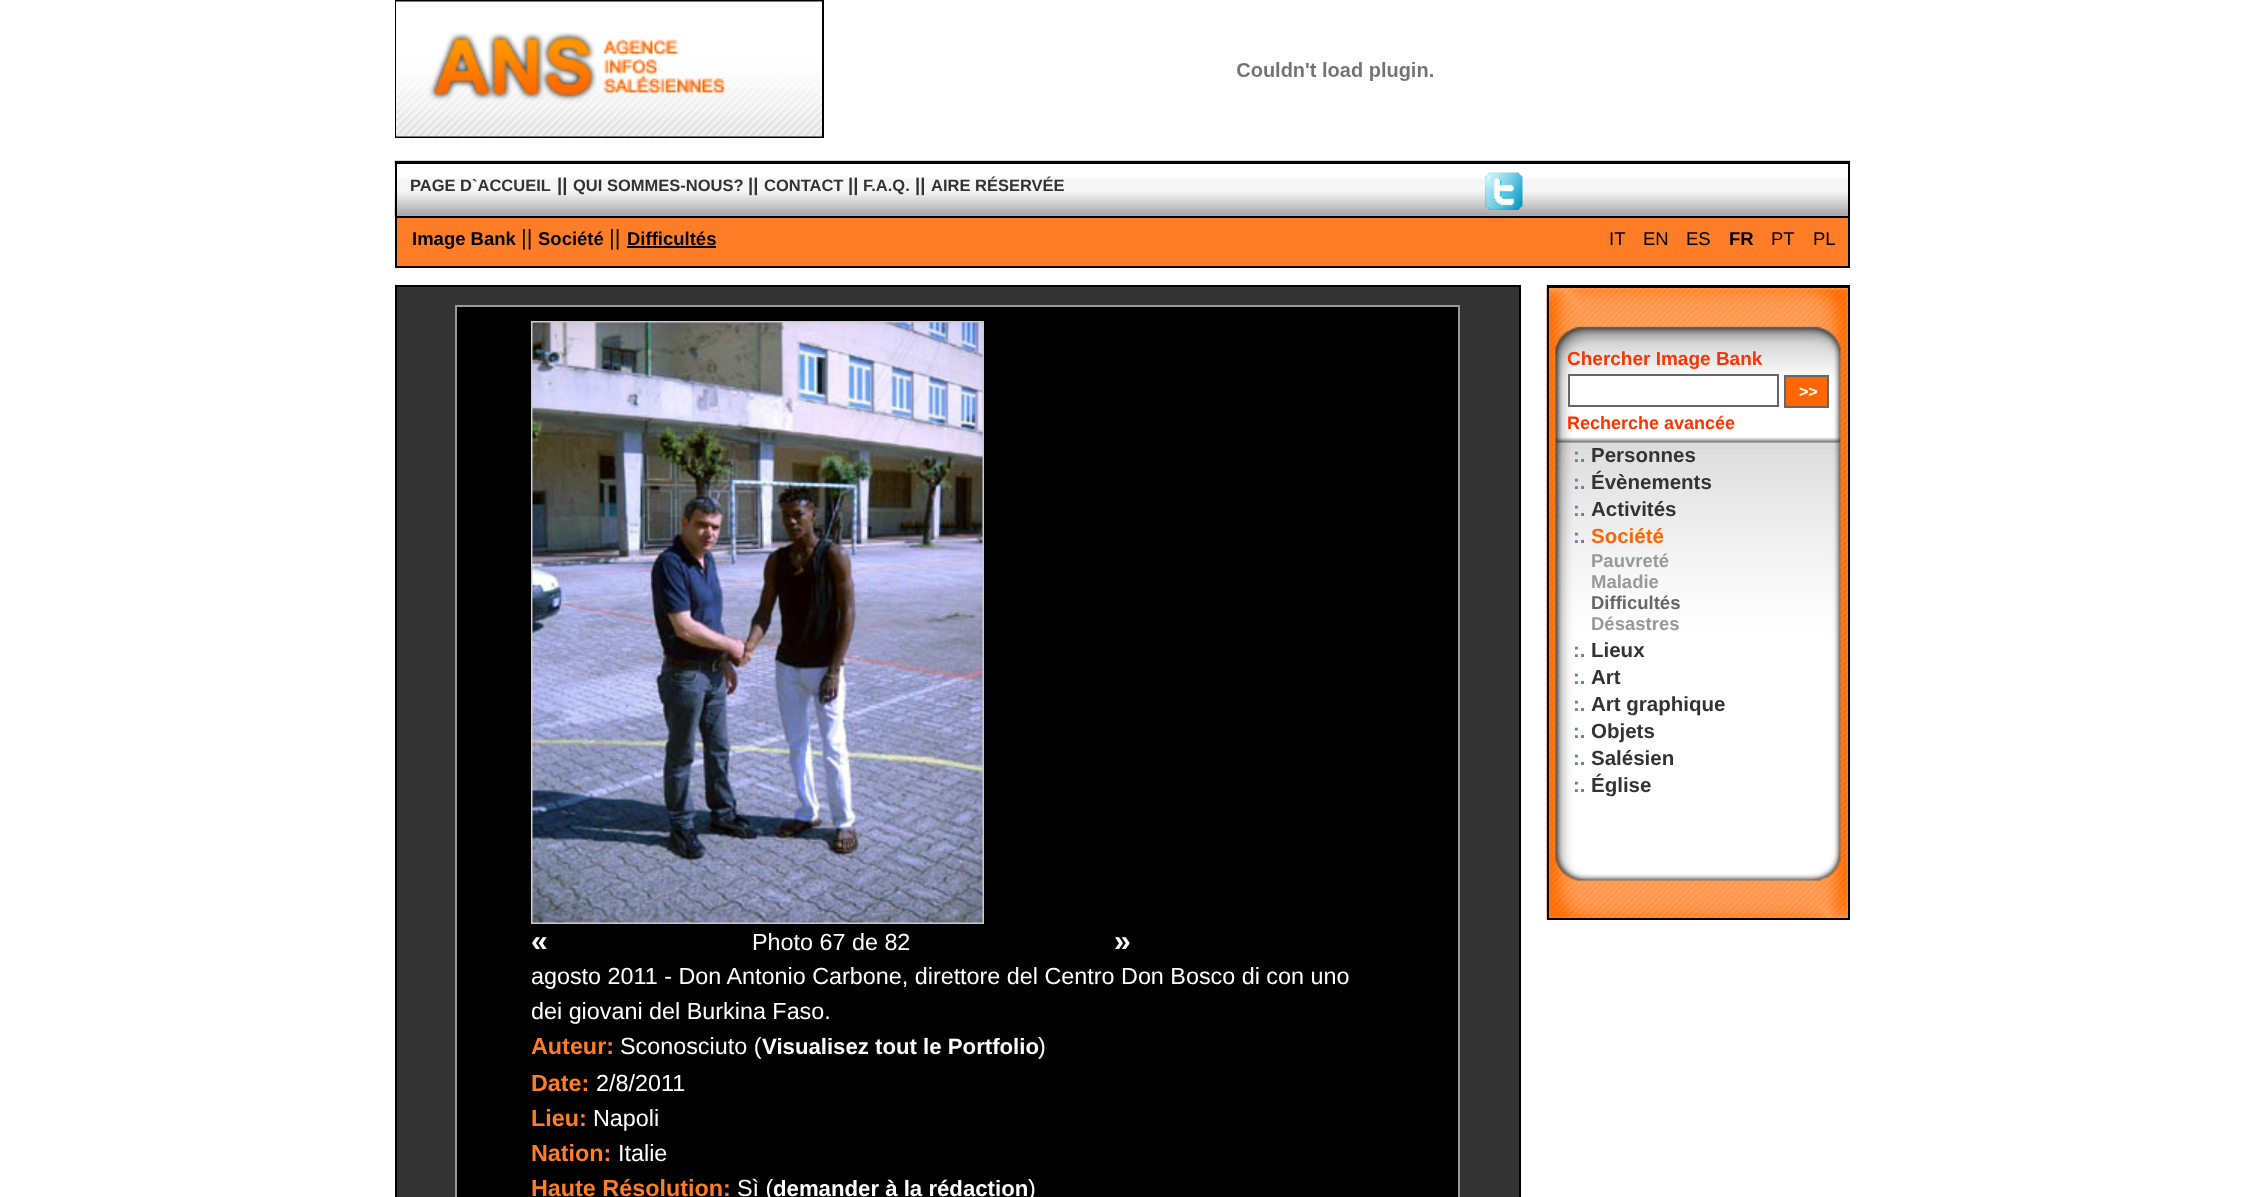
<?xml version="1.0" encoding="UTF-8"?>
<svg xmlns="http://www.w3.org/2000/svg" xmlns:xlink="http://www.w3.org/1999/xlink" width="2242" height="1197">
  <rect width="100%" height="100%" fill="#ffffff" />
  <rect x="396" y="1" width="427" height="136" fill="none" stroke="#000000" stroke-width="2" />
  <image x="396" y="1" width="426" height="136" xlink:href="image1.png" />
  <image x="1237" y="62" width="196" height="19" xlink:href="image2.png" />
  <image x="394" y="160" width="1456" height="57" xlink:href="image3.png" />
  <rect x="395" y="161" width="1455" height="3" fill="#000000" />
  <rect x="1848" y="161" width="2" height="106" fill="#000000" />
  <rect x="395" y="216" width="1455" height="2" fill="#000000" />
  <rect x="395" y="161" width="2" height="57" fill="#000000" />
  <image x="1485" y="172" width="38" height="38" xlink:href="image4.png" />
  <rect x="397" y="218" width="1451" height="48" fill="#ff7d27" />
  <rect x="395" y="266" width="1455" height="2" fill="#000000" />
  <rect x="395" y="218" width="2" height="49" fill="#000000" />
  <rect x="627" y="246" width="89" height="2" fill="#000000" />
  <image x="1546" y="285" width="302" height="635" xlink:href="image5.png" />
  <rect x="1547" y="285" width="303" height="3" fill="#000000" />
  <rect x="1848" y="285" width="2" height="635" fill="#000000" />
  <rect x="1547" y="918" width="303" height="2" fill="#000000" />
  <rect x="1547" y="285" width="2" height="635" fill="#000000" />
  <rect x="1569" y="375" width="209" height="31" fill="#ffffff" stroke="#666666" stroke-width="2" />
  <rect x="1785" y="376" width="43" height="31" fill="#ff6600" stroke="#666666" stroke-width="2" />
  <rect x="396" y="286" width="1124" height="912" fill="#333333" stroke="#000000" stroke-width="2" />
  <rect x="456" y="306" width="1003" height="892" fill="#000000" stroke="#999999" stroke-width="2" />
  <rect x="532" y="322" width="451" height="601" fill="none" stroke="#cccccc" stroke-width="2" />
  <image x="532" y="322" width="451" height="601" xlink:href="image6.png" />
  <text x="410" y="191" style="font-family: Liberation Sans; font-size: 16.5px; font-weight: bold; fill: #333333">PAGE D`ACCUEIL</text>
  <text x="557" y="191" style="font-family: Liberation Sans; font-size: 18.5px; font-weight: bold; fill: #333333">||</text>
  <text x="573" y="191" style="font-family: Liberation Sans; font-size: 16.5px; font-weight: bold; fill: #333333">QUI SOMMES-NOUS?</text>
  <text x="748" y="191" style="font-family: Liberation Sans; font-size: 18.5px; font-weight: bold; fill: #333333">||</text>
  <text x="764" y="191" style="font-family: Liberation Sans; font-size: 16.5px; font-weight: bold; fill: #333333">CONTACT</text>
  <text x="848" y="191" style="font-family: Liberation Sans; font-size: 18.5px; font-weight: bold; fill: #333333">||</text>
  <text x="863" y="191" style="font-family: Liberation Sans; font-size: 16.5px; font-weight: bold; fill: #333333">F.A.Q.</text>
  <text x="915" y="191" style="font-family: Liberation Sans; font-size: 18.5px; font-weight: bold; fill: #333333">||</text>
  <text x="931" y="191" style="font-family: Liberation Sans; font-size: 16.5px; font-weight: bold; fill: #333333">AIRE RÉSERVÉE</text>
  <text x="412" y="245" style="font-family: Liberation Sans; font-size: 18.5px; font-weight: bold; fill: #000000">Image Bank</text>
  <text x="521" y="245" style="font-family: Liberation Sans; font-size: 22px; fill: #000000">||</text>
  <text x="538" y="245" style="font-family: Liberation Sans; font-size: 18.5px; font-weight: bold; fill: #000000">Société</text>
  <text x="609" y="245" style="font-family: Liberation Sans; font-size: 22px; fill: #000000">||</text>
  <text x="627" y="245" style="font-family: Liberation Sans; font-size: 18.5px; font-weight: bold; fill: #000000">Difficultés</text>
  <text x="1609" y="245" style="font-family: Liberation Sans; font-size: 18.5px; fill: #000000">IT</text>
  <text x="1643" y="245" style="font-family: Liberation Sans; font-size: 18.5px; fill: #000000">EN</text>
  <text x="1686" y="245" style="font-family: Liberation Sans; font-size: 18.5px; fill: #000000">ES</text>
  <text x="1729" y="245" style="font-family: Liberation Sans; font-size: 18.5px; font-weight: bold; fill: #000000">FR</text>
  <text x="1771" y="245" style="font-family: Liberation Sans; font-size: 18.5px; fill: #000000">PT</text>
  <text x="1813" y="245" style="font-family: Liberation Sans; font-size: 18.5px; fill: #000000">PL</text>
  <text x="1567" y="365" style="font-family: Liberation Sans; font-size: 19px; font-weight: bold; fill: #ff3300">Chercher Image Bank</text>
  <text x="1799" y="397" style="font-family: Liberation Sans; font-size: 16px; font-weight: bold; fill: #ffffff">&gt;&gt;</text>
  <text x="1567" y="429" style="font-family: Liberation Sans; font-size: 18px; font-weight: bold; fill: #ff3300">Recherche avancée</text>
  <text x="1573" y="462" style="font-family: Liberation Sans; font-size: 20.5px; font-weight: bold; fill: #67819f">:.</text>
  <text x="1591" y="462" style="font-family: Liberation Sans; font-size: 20.5px; font-weight: bold; fill: #333333">Personnes</text>
  <text x="1573" y="489" style="font-family: Liberation Sans; font-size: 20.5px; font-weight: bold; fill: #67819f">:.</text>
  <text x="1591" y="489" style="font-family: Liberation Sans; font-size: 20.5px; font-weight: bold; fill: #333333">Évènements</text>
  <text x="1573" y="516" style="font-family: Liberation Sans; font-size: 20.5px; font-weight: bold; fill: #67819f">:.</text>
  <text x="1591" y="516" style="font-family: Liberation Sans; font-size: 20.5px; font-weight: bold; fill: #333333">Activités</text>
  <text x="1573" y="543" style="font-family: Liberation Sans; font-size: 20.5px; font-weight: bold; fill: #67819f">:.</text>
  <text x="1591" y="543" style="font-family: Liberation Sans; font-size: 20.5px; font-weight: bold; fill: #ff6600">Société</text>
  <text x="1591" y="567" style="font-family: Liberation Sans; font-size: 18.5px; font-weight: bold; fill: #999999">Pauvreté</text>
  <text x="1591" y="588" style="font-family: Liberation Sans; font-size: 18.5px; font-weight: bold; fill: #999999">Maladie</text>
  <text x="1591" y="609" style="font-family: Liberation Sans; font-size: 18.5px; font-weight: bold; fill: #666666">Difficultés</text>
  <text x="1591" y="630" style="font-family: Liberation Sans; font-size: 18.5px; font-weight: bold; fill: #999999">Désastres</text>
  <text x="1573" y="657" style="font-family: Liberation Sans; font-size: 20.5px; font-weight: bold; fill: #67819f">:.</text>
  <text x="1591" y="657" style="font-family: Liberation Sans; font-size: 20.5px; font-weight: bold; fill: #333333">Lieux</text>
  <text x="1573" y="684" style="font-family: Liberation Sans; font-size: 20.5px; font-weight: bold; fill: #67819f">:.</text>
  <text x="1591" y="684" style="font-family: Liberation Sans; font-size: 20.5px; font-weight: bold; fill: #333333">Art</text>
  <text x="1573" y="711" style="font-family: Liberation Sans; font-size: 20.5px; font-weight: bold; fill: #67819f">:.</text>
  <text x="1591" y="711" style="font-family: Liberation Sans; font-size: 20.5px; font-weight: bold; fill: #333333">Art graphique</text>
  <text x="1573" y="738" style="font-family: Liberation Sans; font-size: 20.5px; font-weight: bold; fill: #67819f">:.</text>
  <text x="1591" y="738" style="font-family: Liberation Sans; font-size: 20.5px; font-weight: bold; fill: #333333">Objets</text>
  <text x="1573" y="765" style="font-family: Liberation Sans; font-size: 20.5px; font-weight: bold; fill: #67819f">:.</text>
  <text x="1591" y="765" style="font-family: Liberation Sans; font-size: 20.5px; font-weight: bold; fill: #333333">Salésien</text>
  <text x="1573" y="792" style="font-family: Liberation Sans; font-size: 20.5px; font-weight: bold; fill: #67819f">:.</text>
  <text x="1591" y="792" style="font-family: Liberation Sans; font-size: 20.5px; font-weight: bold; fill: #333333">Église</text>
  <text x="531" y="951" style="font-family: Liberation Sans; font-size: 30px; font-weight: bold; fill: #ffffff">«</text>
  <text x="752" y="950" style="font-family: Liberation Sans; font-size: 23.35px; fill: #ffffff">Photo 67 de 82</text>
  <text x="1114" y="951" style="font-family: Liberation Sans; font-size: 30px; font-weight: bold; fill: #ffffff">»</text>
  <text x="531" y="984" style="font-family: Liberation Sans; font-size: 23.35px; fill: #ffffff">agosto 2011 - Don Antonio Carbone, direttore del Centro Don Bosco di con uno</text>
  <text x="531" y="1019" style="font-family: Liberation Sans; font-size: 23.35px; fill: #ffffff">dei giovani del Burkina Faso.</text>
  <text x="531" y="1054" style="font-family: Liberation Sans; font-size: 23.35px; font-weight: bold; fill: #ff7d27">Auteur:</text>
  <text x="620" y="1054" style="font-family: Liberation Sans; font-size: 23.35px; fill: #ffffff">Sconosciuto (</text>
  <text x="762" y="1054" style="font-family: Liberation Sans; font-size: 22.2px; font-weight: bold; fill: #ffffff">Visualisez tout le Portfolio</text>
  <text x="1038" y="1054" style="font-family: Liberation Sans; font-size: 23.35px; fill: #ffffff">)</text>
  <text x="531" y="1091" style="font-family: Liberation Sans; font-size: 23.35px; font-weight: bold; fill: #ff7d27">Date:</text>
  <text x="596" y="1091" style="font-family: Liberation Sans; font-size: 23.35px; fill: #ffffff">2/8/2011</text>
  <text x="531" y="1126" style="font-family: Liberation Sans; font-size: 23.35px; font-weight: bold; fill: #ff7d27">Lieu:</text>
  <text x="593" y="1126" style="font-family: Liberation Sans; font-size: 23.35px; fill: #ffffff">Napoli</text>
  <text x="531" y="1161" style="font-family: Liberation Sans; font-size: 23.35px; font-weight: bold; fill: #ff7d27">Nation:</text>
  <text x="618" y="1161" style="font-family: Liberation Sans; font-size: 23.35px; fill: #ffffff">Italie</text>
  <text x="531" y="1196" style="font-family: Liberation Sans; font-size: 23.35px; font-weight: bold; fill: #ff7d27">Haute Résolution:</text>
  <text x="737" y="1196" style="font-family: Liberation Sans; font-size: 23.35px; fill: #ffffff">Sì (</text>
  <text x="773" y="1196" style="font-family: Liberation Sans; font-size: 22.2px; font-weight: bold; fill: #ffffff">demander à la rédaction</text>
  <text x="1028" y="1196" style="font-family: Liberation Sans; font-size: 23.35px; fill: #ffffff">)</text>
</svg>
